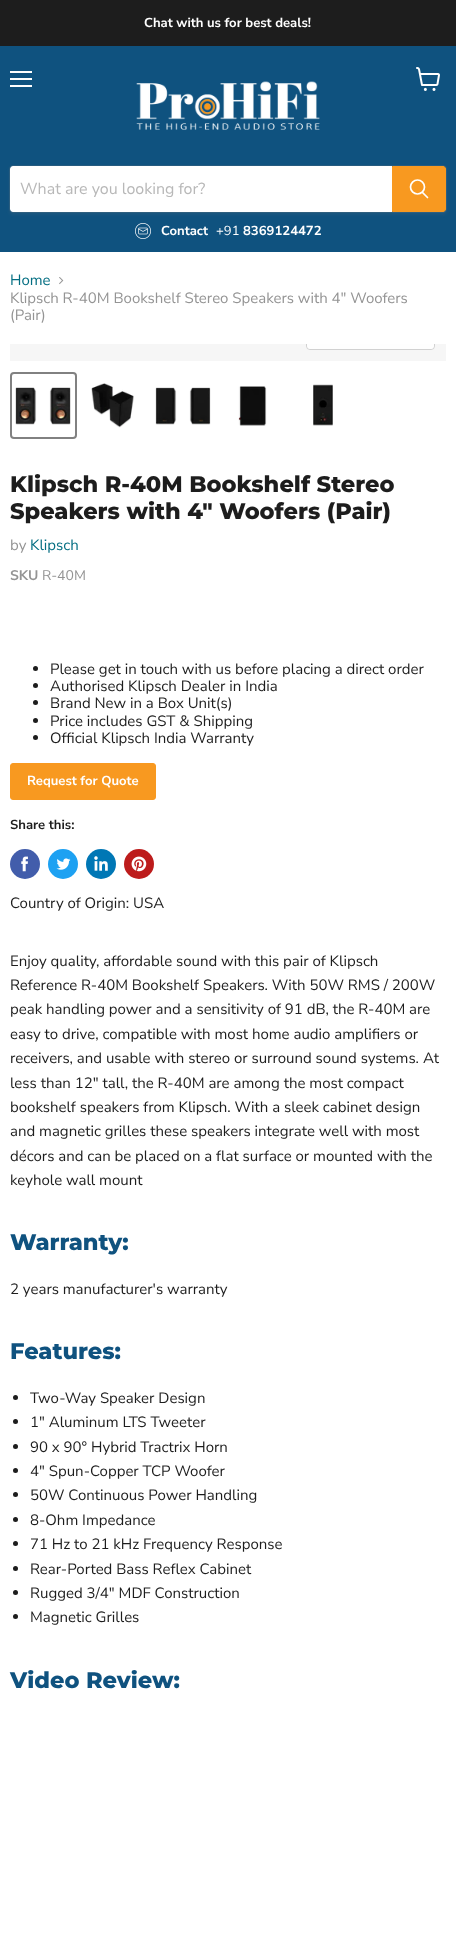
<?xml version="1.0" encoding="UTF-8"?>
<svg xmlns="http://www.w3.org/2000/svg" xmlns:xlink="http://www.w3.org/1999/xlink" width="456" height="1942">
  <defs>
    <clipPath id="clip1"><rect x="10" y="344" width="436" height="17" /></clipPath>
  </defs>
  <rect width="100%" height="100%" fill="#ffffff" />
  <rect width="456" height="46" fill="#1d1d1d" />
  <rect y="46" width="456" height="206" fill="#0f527f" />
  <rect x="10" y="71" width="22" height="2" fill="#ffffff" />
  <rect x="10" y="78" width="22" height="2" fill="#ffffff" />
  <rect x="10" y="85" width="22" height="2" fill="#ffffff" />
  <image x="416" y="67" width="24" height="24" xlink:href="image1.png" />
  <image x="136" y="81" width="184" height="49" xlink:href="image2.png" />
  <rect x="9" y="167" width="438" height="48" rx="4" fill="#808080" fill-opacity="0.11" filter="blur(1.5px)" />
  <rect x="9.5" y="165.5" width="437" height="47" rx="3.5" fill="none" stroke="#808080" stroke-opacity="0.2" />
  <path d="M 13 166 h 379 v 46 h -379 c -1.5 0 -3 -1.5 -3 -3 v -40 c 0 -1.5 1.5 -3 3 -3 z" fill="#ffffff" />
  <path d="M 392.5 166.5 h 50.5 c 1.5 0 2.5 1 2.5 2.5 v 40 c 0 1.5 -1 2.5 -2.5 2.5 h -50.5 z" fill="#f89920" stroke="#f89920" />
  <path d="M 427.5 197.5 l -5 -5" fill="none" stroke="#ffffff" stroke-width="1.7" stroke-linecap="round" />
  <circle cx="417.5" cy="187" r="7" fill="none" stroke="#ffffff" stroke-width="1.7" />
  <image x="135" y="223" width="16" height="16" xlink:href="image3.png" />
  <image x="59" y="277" width="5" height="8" xlink:href="image4.png" />
  <rect x="10" y="344" width="436" height="17" fill="#f6f6f6" />
  <g clip-path="url(#clip1)">
    <rect x="306.5" y="321.5" width="128" height="28" rx="3.5" fill="none" stroke="#d1d1d1" />
  </g>
  <path d="M 307 344 h 127 v 2 c 0 1.5 -1.5 3 -3 3 h -121 c -1.5 0 -3 -1.5 -3 -3 z" fill="#ffffff" fill-opacity="0.9" />
  <rect x="11" y="373" width="65" height="65" rx="3" fill="none" stroke="#818181" stroke-width="2" />
  <image x="15" y="387" width="56" height="38" xlink:href="image5.png" />
  <image x="91" y="383" width="43" height="45" xlink:href="image6.png" />
  <image x="155" y="387" width="56" height="38" xlink:href="image7.png" />
  <image x="238" y="386" width="29" height="40" xlink:href="image8.png" />
  <image x="313" y="384" width="20" height="42" xlink:href="image9.png" />
  <circle cx="35.5" cy="668.5" r="2.5" fill="#1d1d1d" />
  <circle cx="35.5" cy="685.5" r="2.5" fill="#1d1d1d" />
  <circle cx="35.5" cy="702.5" r="2.5" fill="#1d1d1d" />
  <circle cx="35.5" cy="720.5" r="2.5" fill="#1d1d1d" />
  <circle cx="35.5" cy="737.5" r="2.5" fill="#1d1d1d" />
  <rect x="10.5" y="763.5" width="145" height="36" rx="2.5" fill="#f89920" stroke="#f89920" />
  <circle cx="25" cy="864" r="15" fill="#425dab" />
  <image x="21" y="856" width="7" height="16" xlink:href="image10.png" />
  <circle cx="63" cy="864" r="15" fill="#1da1f2" />
  <image x="56" y="858" width="15" height="12" xlink:href="image11.png" />
  <circle cx="101" cy="864" r="15" fill="#0077b5" />
  <image x="94" y="856" width="14" height="15" xlink:href="image12.png" />
  <circle cx="139" cy="864" r="15" fill="#bd1c1c" />
  <image x="131" y="856" width="16" height="16" xlink:href="image13.png" />
  <circle cx="15.5" cy="1397.5" r="2.5" fill="#1d1d1d" />
  <circle cx="15.5" cy="1421.5" r="2.5" fill="#1d1d1d" />
  <circle cx="15.5" cy="1446.5" r="2.5" fill="#1d1d1d" />
  <circle cx="15.5" cy="1470.5" r="2.5" fill="#1d1d1d" />
  <circle cx="15.5" cy="1494.5" r="2.5" fill="#1d1d1d" />
  <circle cx="15.5" cy="1519.5" r="2.5" fill="#1d1d1d" />
  <circle cx="15.5" cy="1543.5" r="2.5" fill="#1d1d1d" />
  <circle cx="15.5" cy="1568.5" r="2.5" fill="#1d1d1d" />
  <circle cx="15.5" cy="1592.5" r="2.5" fill="#1d1d1d" />
  <circle cx="15.5" cy="1616.5" r="2.5" fill="#1d1d1d" />
  <text x="144" y="27" style="font-family: Nunito Sans; font-size: 13.1px; font-weight: bold; fill: #ffffff">Chat with us for best deals!</text>
  <text x="20" y="194" style="font-family: Nunito Sans; font-size: 16px; fill: #b8b8b8">What are you looking for?</text>
  <text x="161" y="235" style="font-family: Nunito Sans; font-size: 13.1px; font-weight: bold; fill: #ffffff">Contact</text>
  <text x="216" y="235" style="font-family: Nunito Sans; font-size: 13.1px; fill: #ffffff">+91</text>
  <text x="243" y="235" style="font-family: Nunito Sans; font-size: 13.1px; font-weight: bold; fill: #ffffff">8369124472</text>
  <text x="10" y="285" style="font-family: Nunito Sans; font-size: 15px; fill: #046e82">Home</text>
  <text x="10" y="303" style="font-family: Nunito Sans; font-size: 15px; fill: #949494">Klipsch R-40M Bookshelf Stereo Speakers with 4" Woofers</text>
  <text x="10" y="320" style="font-family: Nunito Sans; font-size: 15px; fill: #949494">(Pair)</text>
  <text x="10" y="492" style="font-family: Montserrat; font-size: 22.5px; font-weight: 800; fill: #1d1d1d">Klipsch R-40M Bookshelf Stereo</text>
  <text x="10" y="519" style="font-family: Montserrat; font-size: 22.5px; font-weight: 800; fill: #1d1d1d">Speakers with 4" Woofers (Pair)</text>
  <text x="10" y="550" style="font-family: Nunito Sans; font-size: 15px; fill: #949494">by</text>
  <text x="30" y="550" style="font-family: Nunito Sans; font-size: 15px; fill: #046e82">Klipsch</text>
  <text x="10" y="580" style="font-family: Nunito Sans; font-size: 14px; font-weight: bold; fill: #949494">SKU</text>
  <text x="42" y="580" style="font-family: Nunito Sans; font-size: 14px; fill: #949494">R-40M</text>
  <text x="50" y="674" style="font-family: Nunito Sans; font-size: 15px; fill: #1d1d1d">Please get in touch with us before placing a direct order</text>
  <text x="50" y="691" style="font-family: Nunito Sans; font-size: 15px; fill: #1d1d1d">Authorised Klipsch Dealer in India</text>
  <text x="50" y="708" style="font-family: Nunito Sans; font-size: 15px; fill: #1d1d1d">Brand New in a Box Unit(s)</text>
  <text x="50" y="726" style="font-family: Nunito Sans; font-size: 15px; fill: #1d1d1d">Price includes GST &amp; Shipping</text>
  <text x="50" y="743" style="font-family: Nunito Sans; font-size: 15px; fill: #1d1d1d">Official Klipsch India Warranty</text>
  <text x="27" y="785" style="font-family: Nunito Sans; font-size: 13.1px; font-weight: bold; fill: #ffffff">Request for Quote</text>
  <text x="10" y="829" style="font-family: Nunito Sans; font-size: 13.1px; font-weight: bold; fill: #1d1d1d">Share this:</text>
  <text x="10" y="908" style="font-family: Nunito Sans; font-size: 15px; fill: #1d1d1d">Country of Origin: USA</text>
  <text x="10" y="966" style="font-family: Nunito Sans; font-size: 15px; fill: #1d1d1d">Enjoy quality, affordable sound with this pair of Klipsch</text>
  <text x="10" y="990" style="font-family: Nunito Sans; font-size: 15px; fill: #1d1d1d">Reference R-40M Bookshelf Speakers. With 50W RMS / 200W</text>
  <text x="10" y="1014" style="font-family: Nunito Sans; font-size: 15px; fill: #1d1d1d">peak handling power and a sensitivity of 91 dB, the R-40M are</text>
  <text x="10" y="1039" style="font-family: Nunito Sans; font-size: 15px; fill: #1d1d1d">easy to drive, compatible with most home audio amplifiers or</text>
  <text x="10" y="1063" style="font-family: Nunito Sans; font-size: 15px; fill: #1d1d1d">receivers, and usable with stereo or surround sound systems. At</text>
  <text x="10" y="1088" style="font-family: Nunito Sans; font-size: 15px; fill: #1d1d1d">less than 12" tall, the R-40M are among the most compact</text>
  <text x="10" y="1112" style="font-family: Nunito Sans; font-size: 15px; fill: #1d1d1d">bookshelf speakers from Klipsch. With a sleek cabinet design</text>
  <text x="10" y="1136" style="font-family: Nunito Sans; font-size: 15px; fill: #1d1d1d">and magnetic grilles these speakers integrate well with most</text>
  <text x="10" y="1161" style="font-family: Nunito Sans; font-size: 15px; fill: #1d1d1d">décors and can be placed on a flat surface or mounted with the</text>
  <text x="10" y="1185" style="font-family: Nunito Sans; font-size: 15px; fill: #1d1d1d">keyhole wall mount</text>
  <text x="10" y="1250" style="font-family: Montserrat; font-size: 22.5px; font-weight: 800; fill: #0f527f">Warranty:</text>
  <text x="10" y="1294" style="font-family: Nunito Sans; font-size: 15px; fill: #1d1d1d">2 years manufacturer's warranty</text>
  <text x="10" y="1359" style="font-family: Montserrat; font-size: 22.5px; font-weight: 800; fill: #0f527f">Features:</text>
  <text x="30" y="1403" style="font-family: Nunito Sans; font-size: 15px; fill: #1d1d1d">Two-Way Speaker Design</text>
  <text x="30" y="1427" style="font-family: Nunito Sans; font-size: 15px; fill: #1d1d1d">1" Aluminum LTS Tweeter</text>
  <text x="30" y="1452" style="font-family: Nunito Sans; font-size: 15px; fill: #1d1d1d">90 x 90° Hybrid Tractrix Horn</text>
  <text x="30" y="1476" style="font-family: Nunito Sans; font-size: 15px; fill: #1d1d1d">4" Spun-Copper TCP Woofer</text>
  <text x="30" y="1500" style="font-family: Nunito Sans; font-size: 15px; fill: #1d1d1d">50W Continuous Power Handling</text>
  <text x="30" y="1525" style="font-family: Nunito Sans; font-size: 15px; fill: #1d1d1d">8-Ohm Impedance</text>
  <text x="30" y="1549" style="font-family: Nunito Sans; font-size: 15px; fill: #1d1d1d">71 Hz to 21 kHz Frequency Response</text>
  <text x="30" y="1574" style="font-family: Nunito Sans; font-size: 15px; fill: #1d1d1d">Rear-Ported Bass Reflex Cabinet</text>
  <text x="30" y="1598" style="font-family: Nunito Sans; font-size: 15px; fill: #1d1d1d">Rugged 3/4" MDF Construction</text>
  <text x="30" y="1622" style="font-family: Nunito Sans; font-size: 15px; fill: #1d1d1d">Magnetic Grilles</text>
  <text x="10" y="1688" style="font-family: Montserrat; font-size: 22.5px; font-weight: 800; fill: #0f527f">Video Review:</text>
</svg>
